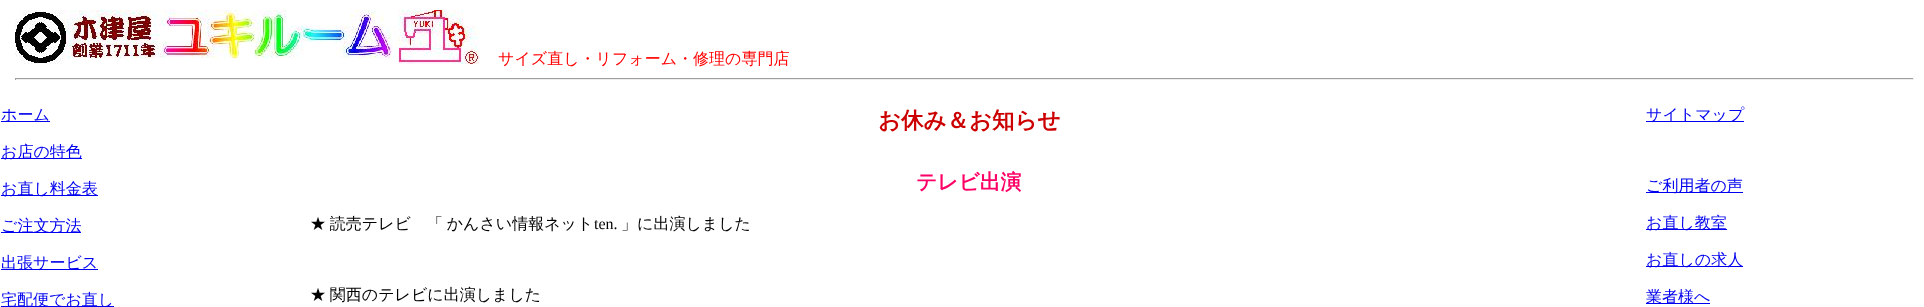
<?xml version="1.0" encoding="UTF-8"?>
<svg xmlns="http://www.w3.org/2000/svg" xmlns:xlink="http://www.w3.org/1999/xlink" width="1924" height="307">
  <rect width="100%" height="100%" fill="#ffffff" />
  <image x="15" y="10" width="465" height="54" xlink:href="image1.png" />
  <rect x="15" y="78" width="1899" height="1" fill="#9f9f9f" />
  <rect x="1913" y="78" width="1" height="2" fill="#eeeeee" />
  <rect x="15" y="79" width="1899" height="1" fill="#eeeeee" />
  <rect x="15" y="78" width="1" height="2" fill="#9f9f9f" />
  <rect x="1" y="121" width="49" height="1" fill="#0000ee" />
  <rect x="1" y="158" width="81" height="1" fill="#0000ee" />
  <rect x="1" y="195" width="97" height="1" fill="#0000ee" />
  <rect x="1" y="232" width="80" height="1" fill="#0000ee" />
  <rect x="1" y="269" width="97" height="1" fill="#0000ee" />
  <rect x="1" y="306" width="113" height="1" fill="#0000ee" />
  <rect x="1646" y="121" width="98" height="1" fill="#0000ee" />
  <rect x="1646" y="192" width="97" height="1" fill="#0000ee" />
  <rect x="1646" y="229" width="81" height="1" fill="#0000ee" />
  <rect x="1646" y="266" width="97" height="1" fill="#0000ee" />
  <rect x="1646" y="303" width="64" height="1" fill="#0000ee" />
  <text x="498" y="64" style="font-family: WenQuanYi Zen Hei; font-size: 16px; font-weight: 500; fill: #ff0000">サイズ直し・リフォーム・修理の専門店</text>
  <text x="1" y="120" style="font-family: WenQuanYi Zen Hei; font-size: 16px; font-weight: 500; fill: #0000ee">ホーム</text>
  <text x="1" y="157" style="font-family: WenQuanYi Zen Hei; font-size: 16px; font-weight: 500; fill: #0000ee">お店の特色</text>
  <text x="1" y="194" style="font-family: WenQuanYi Zen Hei; font-size: 16px; font-weight: 500; fill: #0000ee">お直し料金表</text>
  <text x="1" y="231" style="font-family: WenQuanYi Zen Hei; font-size: 16px; font-weight: 500; fill: #0000ee">ご注文方法</text>
  <text x="1" y="268" style="font-family: WenQuanYi Zen Hei; font-size: 16px; font-weight: 500; fill: #0000ee">出張サービス</text>
  <text x="1" y="305" style="font-family: WenQuanYi Zen Hei; font-size: 16px; font-weight: 500; fill: #0000ee">宅配便でお直し</text>
  <text x="878" y="128" style="font-family: WenQuanYi Zen Hei; font-size: 22.5px; font-weight: bold; fill: #cc0000">お休み＆お知らせ</text>
  <text x="916" y="189" style="font-family: WenQuanYi Zen Hei; font-size: 20.75px; font-weight: bold; fill: #ff0066">テレビ出演</text>
  <text x="310" y="229" word-spacing="-1" style="font-family: WenQuanYi Zen Hei; font-size: 16px; font-weight: 500; fill: #000000">★ 読売テレビ　「 かんさい情報ネット</text>
  <text x="594" y="229" style="font-family: Liberation Serif; font-size: 16px; fill: #000000">ten.</text>
  <text x="621" y="229" style="font-family: WenQuanYi Zen Hei; font-size: 16px; font-weight: 500; fill: #000000">」に出演しました</text>
  <text x="310" y="300" word-spacing="-1" style="font-family: WenQuanYi Zen Hei; font-size: 16px; font-weight: 500; fill: #000000">★ 関西のテレビに出演しました</text>
  <text x="1646" y="120" style="font-family: WenQuanYi Zen Hei; font-size: 16px; font-weight: 500; fill: #0000ee">サイトマップ</text>
  <text x="1646" y="191" style="font-family: WenQuanYi Zen Hei; font-size: 16px; font-weight: 500; fill: #0000ee">ご利用者の声</text>
  <text x="1646" y="228" style="font-family: WenQuanYi Zen Hei; font-size: 16px; font-weight: 500; fill: #0000ee">お直し教室</text>
  <text x="1646" y="265" style="font-family: WenQuanYi Zen Hei; font-size: 16px; font-weight: 500; fill: #0000ee">お直しの求人</text>
  <text x="1646" y="302" style="font-family: WenQuanYi Zen Hei; font-size: 16px; font-weight: 500; fill: #0000ee">業者様へ</text>
</svg>
